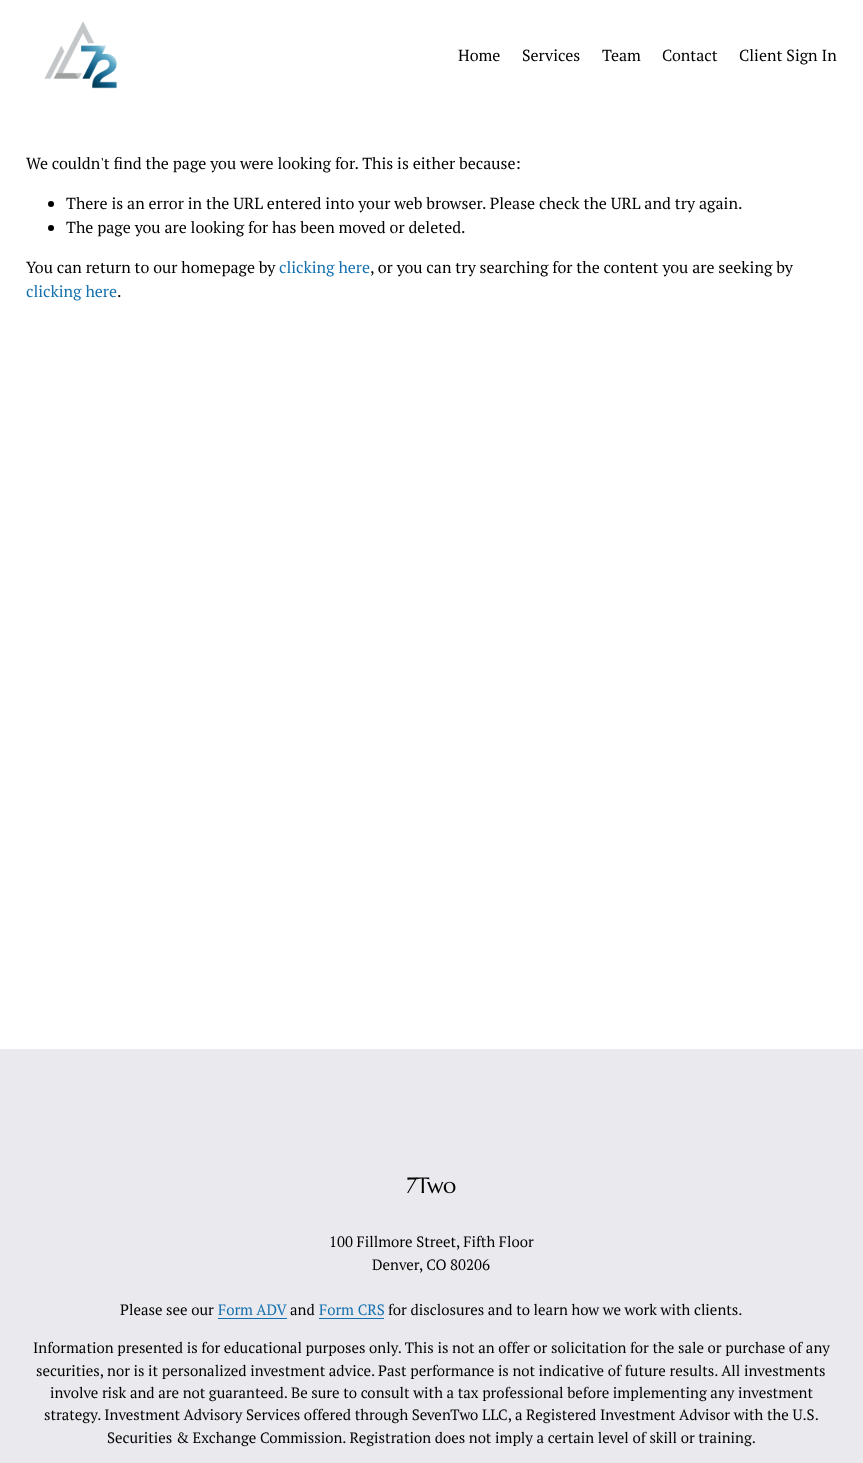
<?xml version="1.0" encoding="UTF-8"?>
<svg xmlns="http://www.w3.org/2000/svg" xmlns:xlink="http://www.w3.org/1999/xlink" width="863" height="1463">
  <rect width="100%" height="100%" fill="#ffffff" />
  <image x="44" y="21" width="74" height="68" xlink:href="image1.png" />
  <circle cx="51" cy="204" r="3" fill="#000000" />
  <circle cx="51" cy="228" r="3" fill="#000000" />
  <rect y="1049" width="863" height="414" fill="#eaeaee" />
  <rect x="218" y="1318" width="69" height="1" fill="#1470af" />
  <rect x="319" y="1318" width="65" height="1" fill="#1470af" />
  <text x="458" y="61" style="font-family: PT Serif; font-size: 16px; fill: #000000">Home</text>
  <text x="522" y="61" style="font-family: PT Serif; font-size: 16px; fill: #000000">Services</text>
  <text x="602" y="61" style="font-family: PT Serif; font-size: 16px; fill: #000000">Team</text>
  <text x="662" y="61" style="font-family: PT Serif; font-size: 16px; fill: #000000">Contact</text>
  <text x="739" y="61" style="font-family: PT Serif; font-size: 16px; fill: #000000">Client Sign In</text>
  <text x="26" y="169" style="font-family: PT Serif; font-size: 16px; fill: #000000">We couldn't find the page you were looking for. This is either because:</text>
  <text x="66" y="209" style="font-family: PT Serif; font-size: 16px; fill: #000000">There is an error in the URL entered into your web browser. Please check the URL and try again.</text>
  <text x="66" y="233" style="font-family: PT Serif; font-size: 16px; fill: #000000">The page you are looking for has been moved or deleted.</text>
  <text x="26" y="273" style="font-family: PT Serif; font-size: 16px; fill: #000000">You can return to our homepage by</text>
  <text x="279" y="273" style="font-family: PT Serif; font-size: 16px; fill: #1470af">clicking here</text>
  <text x="370" y="273" style="font-family: PT Serif; font-size: 16px; fill: #000000">, or you can try searching for the content you are seeking by</text>
  <text x="26" y="297" style="font-family: PT Serif; font-size: 16px; fill: #1470af">clicking here</text>
  <text x="117" y="297" style="font-family: PT Serif; font-size: 16px; fill: #000000">.</text>
  <text x="406" y="1193" style="font-family: Marcellus; font-size: 22px; letter-spacing: -0.5px; fill: #000000">7Two</text>
  <text x="329" y="1247" style="font-family: PT Serif; font-size: 14.95px; fill: #000000">100 Fillmore Street, Fifth Floor</text>
  <text x="372" y="1270" style="font-family: PT Serif; font-size: 14.95px; fill: #000000">Denver, CO 80206</text>
  <text x="120" y="1315" style="font-family: PT Serif; font-size: 14.95px; fill: #000000">Please see our</text>
  <text x="218" y="1315" style="font-family: PT Serif; font-size: 14.95px; fill: #1470af">Form ADV</text>
  <text x="290" y="1315" style="font-family: PT Serif; font-size: 14.95px; fill: #000000">and</text>
  <text x="319" y="1315" style="font-family: PT Serif; font-size: 14.95px; fill: #1470af">Form CRS</text>
  <text x="388" y="1315" style="font-family: PT Serif; font-size: 14.95px; fill: #000000">for disclosures and to learn how we work with clients.</text>
  <text x="33" y="1353" style="font-family: PT Serif; font-size: 14.95px; fill: #000000">Information presented is for educational purposes only. This is not an offer or solicitation for the sale or purchase of any</text>
  <text x="36" y="1376" style="font-family: PT Serif; font-size: 14.95px; fill: #000000">securities, nor is it personalized investment advice. Past performance is not indicative of future results. All investments</text>
  <text x="50" y="1398" style="font-family: PT Serif; font-size: 14.95px; fill: #000000">involve risk and are not guaranteed. Be sure to consult with a tax professional before implementing any investment</text>
  <text x="44" y="1420" style="font-family: PT Serif; font-size: 14.95px; fill: #000000">strategy. Investment Advisory Services offered through SevenTwo LLC, a Registered Investment Advisor with the U.S.</text>
  <text x="107" y="1443" style="font-family: PT Serif; font-size: 14.95px; fill: #000000">Securities &amp; Exchange Commission. Registration does not imply a certain level of skill or training.</text>
</svg>
